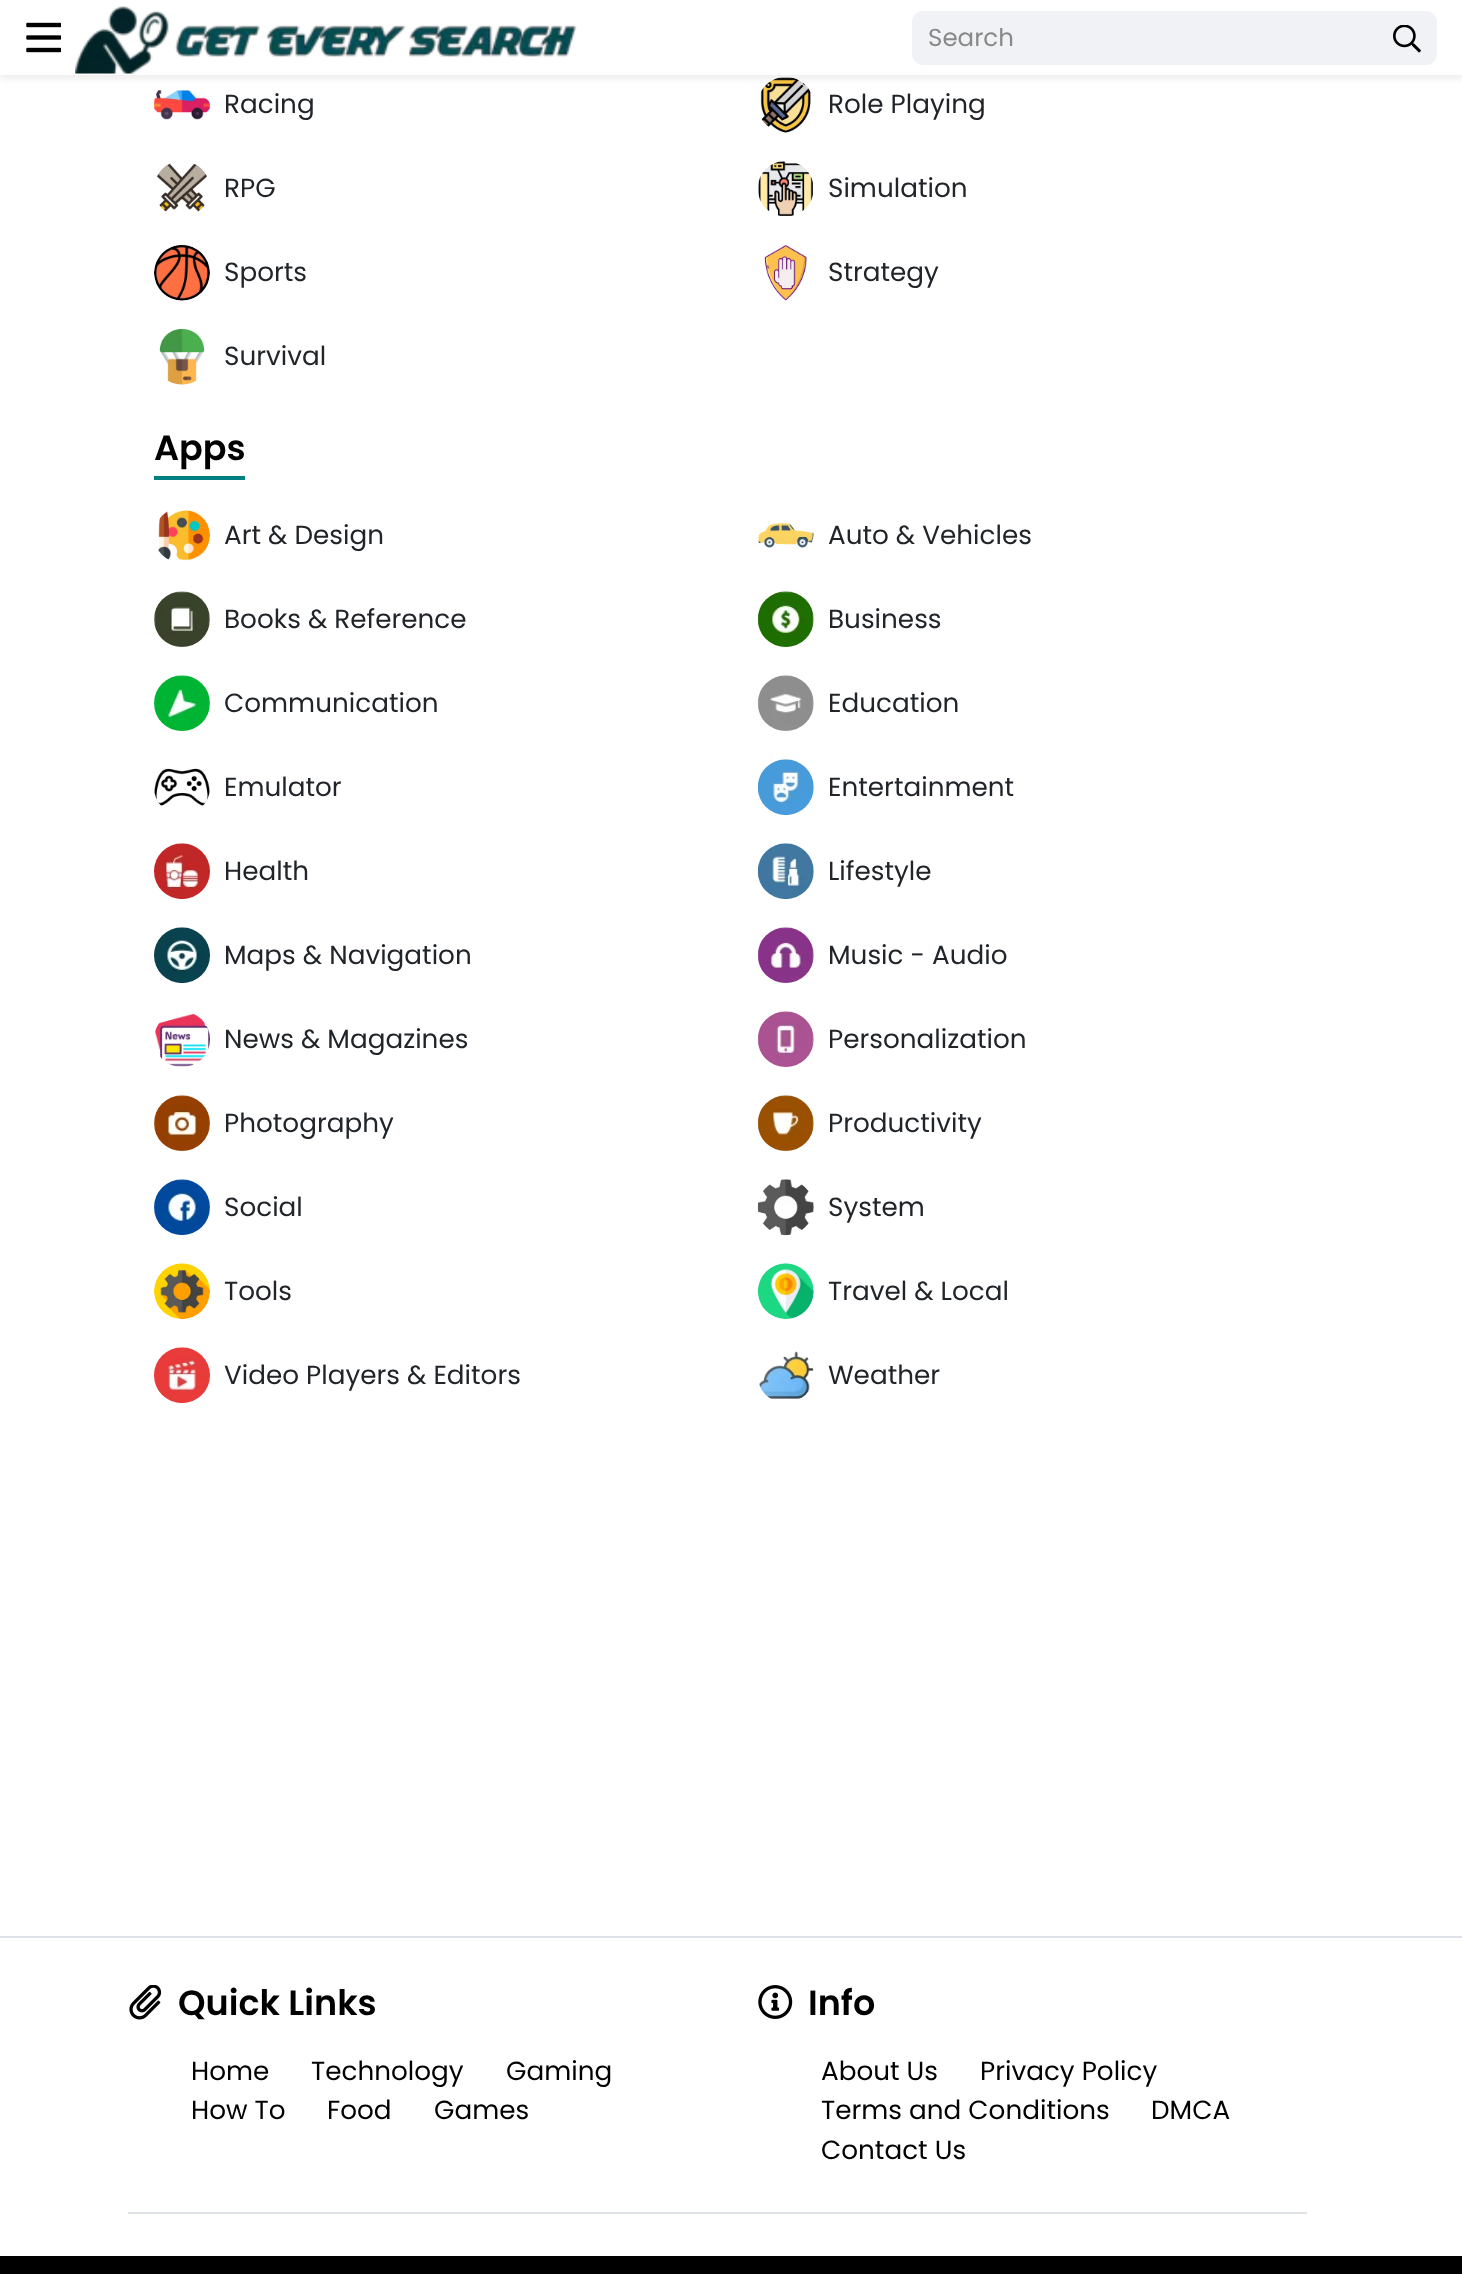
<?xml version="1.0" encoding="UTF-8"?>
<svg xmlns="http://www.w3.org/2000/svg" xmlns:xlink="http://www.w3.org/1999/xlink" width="1462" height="2274">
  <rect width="100%" height="100%" fill="#ffffff" />
  <image x="154" y="90" width="56" height="30" xlink:href="image4.png" />
  <image x="760" y="77" width="51" height="56" xlink:href="image5.png" />
  <rect y="4" width="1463" height="75" fill="#000000" fill-opacity="0.07" filter="blur(3.5px)" />
  <rect width="1462" height="75" fill="#ffffff" />
  <image x="26" y="22" width="35" height="31" xlink:href="image1.png" />
  <image x="75" y="5" width="502" height="69" xlink:href="image2.png" />
  <path d="M 923 12 h 455 v 52 h -455 c -5.5 0 -10 -4.5 -10 -10 v -32 c 0 -5.5 4.5 -10 10 -10 z" fill="#f0f2f5" stroke="#f0f2f5" stroke-width="2" />
  <path d="M 1378 12 h 48 c 5.5 0 10 4.5 10 10 v 32 c 0 5.5 -4.5 10 -10 10 h -48 z" fill="#f0f2f5" stroke="#f0f2f5" stroke-width="2" />
  <image x="1393" y="25" width="28" height="28" xlink:href="image3.png" />
  <image x="157" y="163" width="50" height="49" xlink:href="image6.png" />
  <image x="758" y="161" width="55" height="55" xlink:href="image7.png" />
  <image x="154" y="244" width="56" height="57" xlink:href="image8.png" />
  <image x="764" y="245" width="43" height="56" xlink:href="image9.png" />
  <image x="159" y="328" width="46" height="57" xlink:href="image10.png" />
  <rect x="154" y="476" width="91" height="4" fill="#008080" />
  <image x="158" y="510" width="52" height="51" xlink:href="image11.png" />
  <image x="758" y="523" width="56" height="25" xlink:href="image12.png" />
  <image x="154" y="591" width="56" height="57" xlink:href="image13.png" />
  <image x="757" y="591" width="57" height="57" xlink:href="image14.png" />
  <image x="154" y="675" width="56" height="57" xlink:href="image15.png" />
  <image x="757" y="675" width="57" height="57" xlink:href="image16.png" />
  <image x="154" y="768" width="56" height="38" xlink:href="image17.png" />
  <image x="757" y="759" width="57" height="57" xlink:href="image18.png" />
  <image x="154" y="843" width="56" height="57" xlink:href="image19.png" />
  <image x="757" y="843" width="57" height="57" xlink:href="image20.png" />
  <image x="154" y="927" width="56" height="57" xlink:href="image21.png" />
  <image x="757" y="927" width="57" height="57" xlink:href="image22.png" />
  <image x="155" y="1013" width="55" height="54" xlink:href="image23.png" />
  <image x="757" y="1011" width="57" height="57" xlink:href="image24.png" />
  <image x="154" y="1095" width="56" height="57" xlink:href="image25.png" />
  <image x="757" y="1095" width="57" height="57" xlink:href="image26.png" />
  <image x="154" y="1179" width="56" height="57" xlink:href="image27.png" />
  <image x="757" y="1179" width="57" height="57" xlink:href="image28.png" />
  <image x="154" y="1263" width="56" height="57" xlink:href="image29.png" />
  <image x="757" y="1263" width="57" height="57" xlink:href="image30.png" />
  <image x="154" y="1347" width="56" height="57" xlink:href="image31.png" />
  <image x="759" y="1351" width="55" height="48" xlink:href="image32.png" />
  <rect y="1936" width="1462" height="2" fill="#dee2e6" />
  <image x="129" y="1985" width="33" height="35" xlink:href="image33.png" />
  <image x="758" y="1985" width="35" height="34" xlink:href="image34.png" />
  <rect x="128" y="2212" width="1179" height="2" fill="#dee2e6" />
  <rect y="2256" width="1462" height="18" fill="#000000" />
  <text x="928" y="46" style="font-family: Poppins; font-size: 24.5px; fill: #898989">Search</text>
  <text x="224" y="113" style="font-family: Poppins; font-size: 26.25px; fill: #212529">Racing</text>
  <text x="828" y="113" style="font-family: Poppins; font-size: 26.25px; fill: #212529">Role Playing</text>
  <text x="224" y="197" style="font-family: Poppins; font-size: 26.25px; fill: #212529">RPG</text>
  <text x="828" y="197" style="font-family: Poppins; font-size: 26.25px; fill: #212529">Simulation</text>
  <text x="224" y="281" style="font-family: Poppins; font-size: 26.25px; fill: #212529">Sports</text>
  <text x="828" y="281" style="font-family: Poppins; font-size: 26.25px; fill: #212529">Strategy</text>
  <text x="224" y="365" style="font-family: Poppins; font-size: 26.25px; fill: #212529">Survival</text>
  <text x="154" y="460" style="font-family: Poppins; font-size: 35px; font-weight: 600; fill: #000000">Apps</text>
  <text x="224" y="544" style="font-family: Poppins; font-size: 26.25px; fill: #212529">Art &amp; Design</text>
  <text x="828" y="544" style="font-family: Poppins; font-size: 26.25px; fill: #212529">Auto &amp; Vehicles</text>
  <text x="224" y="628" style="font-family: Poppins; font-size: 26.25px; fill: #212529">Books &amp; Reference</text>
  <text x="828" y="628" style="font-family: Poppins; font-size: 26.25px; fill: #212529">Business</text>
  <text x="224" y="712" style="font-family: Poppins; font-size: 26.25px; fill: #212529">Communication</text>
  <text x="828" y="712" style="font-family: Poppins; font-size: 26.25px; fill: #212529">Education</text>
  <text x="224" y="796" style="font-family: Poppins; font-size: 26.25px; fill: #212529">Emulator</text>
  <text x="828" y="796" style="font-family: Poppins; font-size: 26.25px; fill: #212529">Entertainment</text>
  <text x="224" y="880" style="font-family: Poppins; font-size: 26.25px; fill: #212529">Health</text>
  <text x="828" y="880" style="font-family: Poppins; font-size: 26.25px; fill: #212529">Lifestyle</text>
  <text x="224" y="964" style="font-family: Poppins; font-size: 26.25px; fill: #212529">Maps &amp; Navigation</text>
  <text x="828" y="964" style="font-family: Poppins; font-size: 26.25px; fill: #212529">Music - Audio</text>
  <text x="224" y="1048" style="font-family: Poppins; font-size: 26.25px; fill: #212529">News &amp; Magazines</text>
  <text x="828" y="1048" style="font-family: Poppins; font-size: 26.25px; fill: #212529">Personalization</text>
  <text x="224" y="1132" style="font-family: Poppins; font-size: 26.25px; fill: #212529">Photography</text>
  <text x="828" y="1132" style="font-family: Poppins; font-size: 26.25px; fill: #212529">Productivity</text>
  <text x="224" y="1216" style="font-family: Poppins; font-size: 26.25px; fill: #212529">Social</text>
  <text x="828" y="1216" style="font-family: Poppins; font-size: 26.25px; fill: #212529">System</text>
  <text x="224" y="1300" style="font-family: Poppins; font-size: 26.25px; fill: #212529">Tools</text>
  <text x="828" y="1300" style="font-family: Poppins; font-size: 26.25px; fill: #212529">Travel &amp; Local</text>
  <text x="224" y="1384" style="font-family: Poppins; font-size: 26.25px; fill: #212529">Video Players &amp; Editors</text>
  <text x="828" y="1384" style="font-family: Poppins; font-size: 26.25px; fill: #212529">Weather</text>
  <text x="178" y="2015" style="font-family: Poppins; font-size: 35px; font-weight: 600; fill: #000000">Quick Links</text>
  <text x="191" y="2080" style="font-family: Poppins; font-size: 26.25px; fill: #000000">Home</text>
  <text x="311" y="2080" style="font-family: Poppins; font-size: 26.25px; fill: #000000">Technology</text>
  <text x="506" y="2080" style="font-family: Poppins; font-size: 26.25px; fill: #000000">Gaming</text>
  <text x="191" y="2119" style="font-family: Poppins; font-size: 26.25px; fill: #000000">How To</text>
  <text x="327" y="2119" style="font-family: Poppins; font-size: 26.25px; fill: #000000">Food</text>
  <text x="434" y="2119" style="font-family: Poppins; font-size: 26.25px; fill: #000000">Games</text>
  <text x="808" y="2015" style="font-family: Poppins; font-size: 35px; font-weight: 600; fill: #000000">Info</text>
  <text x="821" y="2080" style="font-family: Poppins; font-size: 26.25px; fill: #000000">About Us</text>
  <text x="980" y="2080" style="font-family: Poppins; font-size: 26.25px; fill: #000000">Privacy Policy</text>
  <text x="821" y="2119" style="font-family: Poppins; font-size: 26.25px; fill: #000000">Terms and Conditions</text>
  <text x="1151" y="2119" style="font-family: Poppins; font-size: 26.25px; fill: #000000">DMCA</text>
  <text x="821" y="2159" style="font-family: Poppins; font-size: 26.25px; fill: #000000">Contact Us</text>
</svg>
